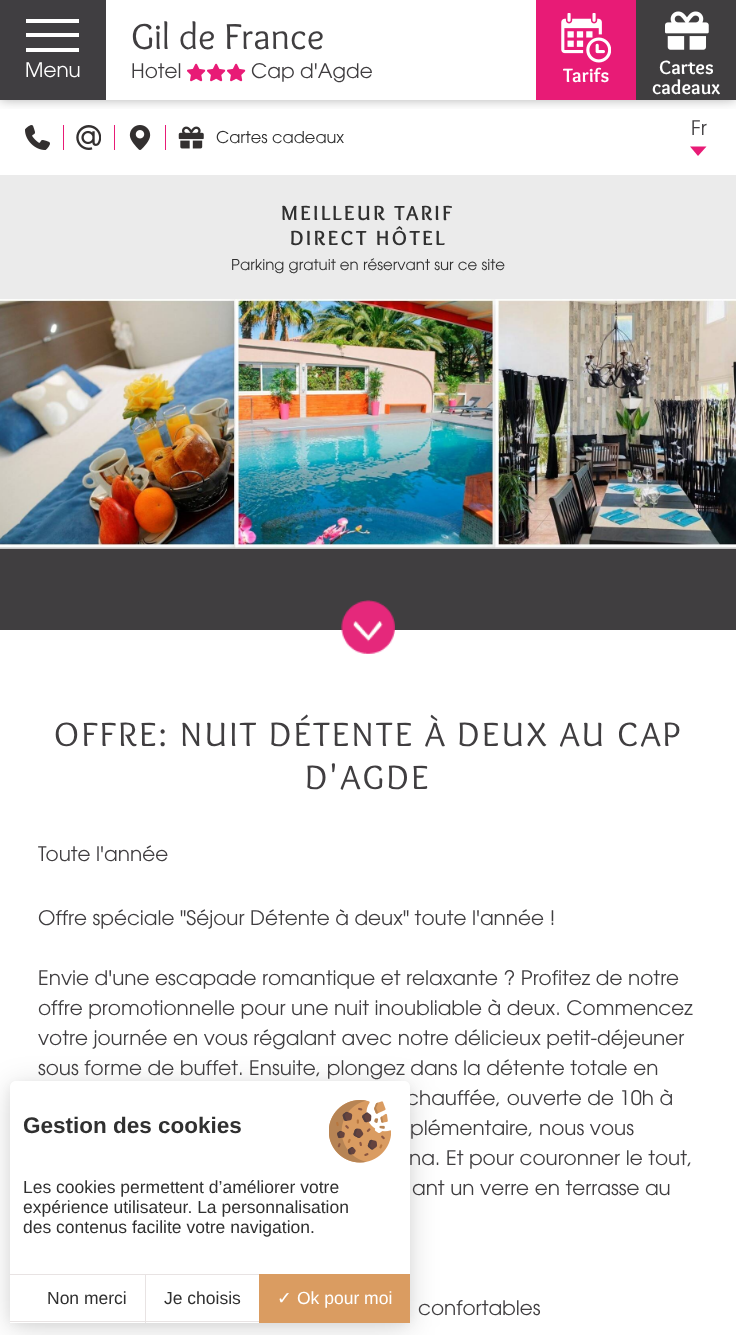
<?xml version="1.0" encoding="UTF-8"?>
<svg xmlns="http://www.w3.org/2000/svg" xmlns:xlink="http://www.w3.org/1999/xlink" width="736" height="1335">
  <defs>
    <clipPath id="clip1"><rect x="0" y="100" width="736" height="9" /></clipPath>
  </defs>
  <rect width="100%" height="100%" fill="#ffffff" />
  <g clip-path="url(#clip1)">
    <rect width="736" height="100" fill="#000000" fill-opacity="0.3" filter="blur(6px)" />
  </g>
  <rect width="106" height="100" fill="#403e41" />
  <rect x="26" y="19" width="53" height="4" fill="#ffffff" />
  <rect x="26" y="33" width="53" height="4" fill="#ffffff" />
  <rect x="26" y="48" width="53" height="4" fill="#ffffff" />
  <image x="187" y="63" width="19" height="19" xlink:href="image1.png" />
  <image x="207" y="63" width="19" height="19" xlink:href="image1.png" />
  <image x="227" y="63" width="19" height="19" xlink:href="image1.png" />
  <rect x="536" width="100" height="100" fill="#e81b76" />
  <image x="561" y="13" width="50" height="50" xlink:href="image2.png" />
  <rect x="636" width="100" height="100" fill="#403e40" />
  <image x="665" y="11" width="44" height="39" xlink:href="image3.png" />
  <path d="M 698 156 l -8 -9.5 h 16.5 z" fill="#e81b76" />
  <rect x="63" y="125" width="1" height="25" fill="#e81b76" />
  <image x="25" y="125" width="25" height="25" xlink:href="image4.png" />
  <rect x="114" y="125" width="1" height="25" fill="#e81b76" />
  <image x="76" y="125" width="25" height="25" xlink:href="image5.png" />
  <rect x="165" y="125" width="1" height="25" fill="#e81b76" />
  <image x="129" y="125" width="22" height="25" xlink:href="image6.png" />
  <image x="178" y="126" width="26" height="23" xlink:href="image7.png" />
  <rect y="175" width="736" height="124" fill="#ebebeb" />
  <image x="0" y="299" width="736" height="250" xlink:href="image8.png" />
  <rect y="549" width="736" height="81" fill="#403e40" />
  <image x="341" y="600" width="54" height="54" xlink:href="image9.png" />
  <rect x="10" y="1084" width="400" height="241" rx="6" fill="#000000" fill-opacity="0.05" filter="blur(4px)" />
  <rect x="10" y="1086" width="400" height="242" rx="6" fill="#000000" fill-opacity="0.15" filter="blur(15px)" />
  <text x="25" y="77" style="font-family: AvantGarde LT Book; font-size: 20px; fill: #ffffff">Menu</text>
  <text x="131" y="49" style="font-family: Overlock; font-size: 37.5px; fill: #403e40">Gil de France</text>
  <text x="131" y="78" style="font-family: AvantGarde LT Book; font-size: 20px; fill: #403e40">Hotel</text>
  <text x="251" y="78" style="font-family: AvantGarde LT Book; font-size: 20px; fill: #403e40">Cap d'Agde</text>
  <text x="563" y="82" style="font-family: Overlock; font-size: 20px; font-weight: bold; fill: #ffffff">Tarifs</text>
  <text x="659" y="74" style="font-family: Overlock; font-size: 20px; font-weight: bold; fill: #ffffff">Cartes</text>
  <text x="652" y="94" style="font-family: Overlock; font-size: 20px; font-weight: bold; fill: #ffffff">cadeaux</text>
  <text x="691" y="135" style="font-family: AvantGarde LT Book; font-size: 20px; fill: #403e40">Fr</text>
  <text x="216" y="143" style="font-family: AvantGarde LT Book; font-size: 16.25px; fill: #303030">Cartes cadeaux</text>
  <text x="281" y="220" style="font-family: Overlock; font-size: 21.25px; font-weight: bold; letter-spacing: 2.5px; fill: #303030">MEILLEUR TARIF</text>
  <text x="290" y="245" style="font-family: Overlock; font-size: 21.25px; font-weight: bold; letter-spacing: 2.5px; fill: #303030">DIRECT HÔTEL</text>
  <text x="231" y="270" style="font-family: AvantGarde LT Book; font-size: 15px; fill: #303030">Parking gratuit en réservant sur ce site</text>
  <text x="54" y="746" style="font-family: Overlock; font-size: 35px; letter-spacing: 2.5px; fill: #403e40">OFFRE: NUIT DÉTENTE À DEUX AU CAP</text>
  <text x="305" y="789" style="font-family: Overlock; font-size: 35px; letter-spacing: 2.5px; fill: #403e40">D'AGDE</text>
  <text x="38" y="861" style="font-family: AvantGarde LT Book; font-size: 20px; fill: #403e40">Toute l'année</text>
  <text x="38" y="925" style="font-family: AvantGarde LT Book; font-size: 20px; fill: #403e40">Offre spéciale "Séjour Détente à deux" toute l'année !</text>
  <text x="38" y="985" style="font-family: AvantGarde LT Book; font-size: 20px; fill: #403e40">Envie d'une escapade romantique et relaxante ? Profitez de notre</text>
  <text x="38" y="1015" style="font-family: AvantGarde LT Book; font-size: 20px; fill: #403e40">offre promotionnelle pour une nuit inoubliable à deux. Commencez</text>
  <text x="38" y="1045" style="font-family: AvantGarde LT Book; font-size: 20px; fill: #403e40">votre journée en vous régalant avec notre délicieux petit-déjeuner</text>
  <text x="38" y="1075" style="font-family: AvantGarde LT Book; font-size: 20px; fill: #403e40">sous forme de buffet. Ensuite, plongez dans la détente totale en</text>
  <text x="406" y="1105" style="font-family: AvantGarde LT Book; font-size: 20px; fill: #403e40">chauffée, ouverte de 10h à</text>
  <text x="410" y="1135" style="font-family: AvantGarde LT Book; font-size: 20px; fill: #403e40">plémentaire, nous vous</text>
  <text x="409" y="1165" style="font-family: AvantGarde LT Book; font-size: 20px; fill: #403e40">na. Et pour couronner le tout,</text>
  <text x="412" y="1195" style="font-family: AvantGarde LT Book; font-size: 20px; fill: #403e40">ant un verre en terrasse au</text>
  <text x="418" y="1315" style="font-family: AvantGarde LT Book; font-size: 20px; fill: #403e40">confortables</text>
  <path d="M 16 1081 h 388 c 3.5 0 6 2.5 6 6 v 236 h -400 v -236 c 0 -3.5 2.5 -6 6 -6 z" fill="#ffffff" />
  <image x="329" y="1100" width="62" height="63" xlink:href="image10.png" />
  <text x="23" y="1133" style="font-family: Liberation Sans; font-size: 22.5px; font-weight: bold; fill: #303030">Gestion des cookies</text>
  <text x="23" y="1193" style="font-family: Liberation Sans; font-size: 17.5px; fill: #303030">Les cookies permettent d’améliorer votre</text>
  <text x="23" y="1213" style="font-family: Liberation Sans; font-size: 17.5px; fill: #303030">expérience utilisateur. La personnalisation</text>
  <text x="23" y="1233" style="font-family: Liberation Sans; font-size: 17.5px; fill: #303030">des contenus facilite votre navigation.</text>
  <rect x="10" y="1274" width="249" height="1" fill="#e8e3e3" />
  <rect x="10" y="1321" width="249" height="1" fill="#e8e3e3" />
  <text x="47" y="1304" style="font-family: Liberation Sans; font-size: 17.5px; fill: #303030">Non merci</text>
  <rect x="145" y="1274" width="1" height="49" fill="#e8e3e3" />
  <text x="164" y="1304" style="font-family: Liberation Sans; font-size: 17.5px; fill: #303030">Je choisis</text>
  <rect x="259" y="1274" width="151" height="49" fill="#da9c61" />
  <text x="277" y="1304" style="font-family: DejaVu Sans; font-size: 17.5px; fill: #ffffff">✓</text>
  <text x="297" y="1304" style="font-family: Liberation Sans; font-size: 17.5px; fill: #ffffff">Ok pour moi</text>
</svg>
